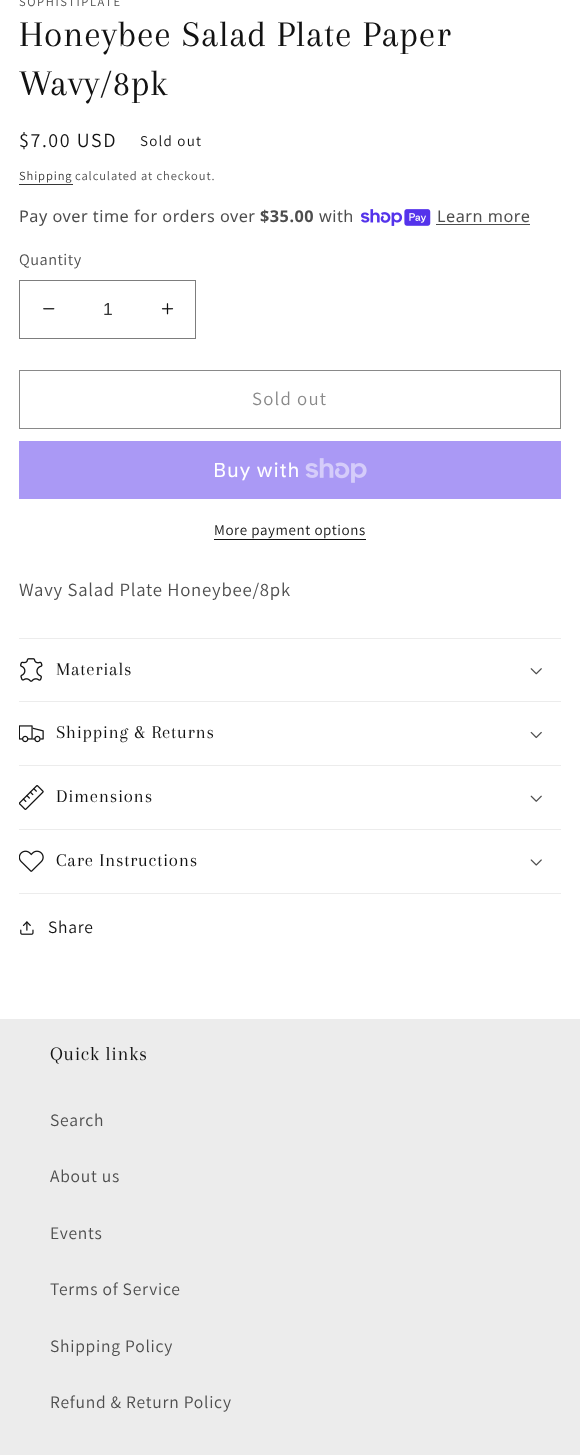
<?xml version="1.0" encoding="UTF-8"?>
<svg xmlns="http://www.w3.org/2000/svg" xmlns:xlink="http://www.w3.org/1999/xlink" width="580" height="1455">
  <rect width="100%" height="100%" fill="#ffffff" />
  <rect x="19" y="184" width="54" height="1" fill="#363636" />
  <image x="361" y="209" width="70" height="17" xlink:href="image1.png" />
  <rect x="436" y="224" width="94" height="1" fill="#4d4d4d" />
  <image x="43" y="308" width="12" height="2" xlink:href="image2.png" />
  <image x="161" y="303" width="13" height="12" xlink:href="image3.png" />
  <rect x="19.5" y="280.5" width="176" height="58" fill="none" stroke="#7d7d7d" />
  <rect x="19.5" y="370.5" width="541" height="58" fill="none" stroke="#898989" />
  <rect x="19" y="441" width="542" height="58" fill="#aa99f5" />
  <image x="305" y="458" width="62" height="25" xlink:href="image4.png" />
  <rect x="214" y="539" width="152" height="1" fill="#121212" />
  <rect x="19" y="638" width="542" height="1" fill="#ececec" />
  <rect x="19" y="701" width="542" height="1" fill="#ececec" />
  <image x="20" y="658" width="23" height="24" xlink:href="image5.png" />
  <image x="530" y="668" width="12" height="7" xlink:href="image6.png" />
  <rect x="19" y="765" width="542" height="1" fill="#ececec" />
  <image x="19" y="725" width="25" height="18" xlink:href="image7.png" />
  <image x="530" y="731" width="12" height="8" xlink:href="image8.png" />
  <rect x="19" y="829" width="542" height="1" fill="#ececec" />
  <image x="19" y="785" width="25" height="25" xlink:href="image9.png" />
  <image x="530" y="795" width="12" height="7" xlink:href="image10.png" />
  <rect x="19" y="893" width="542" height="1" fill="#ececec" />
  <image x="19" y="850" width="25" height="22" xlink:href="image11.png" />
  <image x="530" y="859" width="12" height="7" xlink:href="image12.png" />
  <image x="20" y="921" width="14" height="14" xlink:href="image13.png" />
  <rect y="1019" width="580" height="436" fill="#ececec" />
  <text x="19" y="6" style="font-family: Assistant; font-size: 12.5px; letter-spacing: 1.6px; fill: #4d4d4d">SOPHISTIPLATE</text>
  <text x="19" y="46" style="font-family: Arapey; font-size: 37.5px; letter-spacing: 0.75px; fill: #121212">Honeybee Salad Plate Paper</text>
  <text x="19" y="95" style="font-family: Arapey; font-size: 37.5px; letter-spacing: 0.75px; fill: #121212">Wavy/8pk</text>
  <text x="19" y="147" style="font-family: Assistant; font-size: 20px; letter-spacing: 1.6px; fill: #121212">$7.00 USD</text>
  <text x="140" y="146" style="font-family: Assistant; font-size: 15px; letter-spacing: 1.25px; fill: #121212">Sold out</text>
  <text x="19" y="180" style="font-family: Assistant; font-size: 12.5px; letter-spacing: 0.9px; fill: #363636">Shipping</text>
  <text x="75" y="180" style="font-family: Assistant; font-size: 12.5px; letter-spacing: 0.9px; fill: #4d4d4d">calculated at checkout.</text>
  <text x="19" y="222" style="font-family: Noto Sans; font-size: 16.25px; letter-spacing: 0.5px; fill: #4d4d4d">Pay over time for orders over</text>
  <text x="260" y="222" style="font-family: Noto Sans; font-size: 16.25px; font-weight: bold; letter-spacing: 0.5px; fill: #4d4d4d">$35.00</text>
  <text x="319" y="222" style="font-family: Noto Sans; font-size: 16.25px; letter-spacing: 0.5px; fill: #4d4d4d">with</text>
  <text x="437" y="222" style="font-family: Noto Sans; font-size: 16.25px; letter-spacing: 0.5px; fill: #4d4d4d">Learn more</text>
  <text x="19" y="265" style="font-family: Assistant; font-size: 16.25px; letter-spacing: 0.5px; fill: #4d4d4d">Quantity</text>
  <text x="103" y="315" style="font-family: Liberation Sans; font-size: 17.5px; fill: #363636">1</text>
  <text x="252" y="405" style="font-family: Assistant; font-size: 18.75px; letter-spacing: 1.25px; fill: #898989">Sold out</text>
  <text x="213" y="477" style="font-family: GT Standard; font-size: 20px; letter-spacing: 0.75px; fill: #ffffff">Buy with</text>
  <text x="214" y="535" style="font-family: Assistant; font-size: 15px; letter-spacing: 0.6px; fill: #121212">More payment options</text>
  <text x="19" y="596" style="font-family: Assistant; font-size: 18.75px; letter-spacing: 0.75px; fill: #4d4d4d">Wavy Salad Plate Honeybee/8pk</text>
  <text x="56" y="675" style="font-family: Arapey; font-size: 18.75px; letter-spacing: 0.75px; fill: #121212">Materials</text>
  <text x="56" y="738" style="font-family: Arapey; font-size: 18.75px; letter-spacing: 0.75px; fill: #121212">Shipping &amp; Returns</text>
  <text x="56" y="802" style="font-family: Arapey; font-size: 18.75px; letter-spacing: 0.75px; fill: #121212">Dimensions</text>
  <text x="56" y="866" style="font-family: Arapey; font-size: 18.75px; letter-spacing: 0.75px; fill: #121212">Care Instructions</text>
  <text x="48" y="933" style="font-family: Assistant; font-size: 17.5px; letter-spacing: 0.75px; fill: #121212">Share</text>
  <text x="50" y="1060" style="font-family: Arapey; font-size: 20px; letter-spacing: 0.75px; fill: #121212">Quick links</text>
  <text x="50" y="1126" style="font-family: Assistant; font-size: 17.5px; letter-spacing: 0.75px; fill: #4d4d4d">Search</text>
  <text x="50" y="1182" style="font-family: Assistant; font-size: 17.5px; letter-spacing: 0.75px; fill: #4d4d4d">About us</text>
  <text x="50" y="1239" style="font-family: Assistant; font-size: 17.5px; letter-spacing: 0.75px; fill: #4d4d4d">Events</text>
  <text x="50" y="1295" style="font-family: Assistant; font-size: 17.5px; letter-spacing: 0.75px; fill: #4d4d4d">Terms of Service</text>
  <text x="50" y="1352" style="font-family: Assistant; font-size: 17.5px; letter-spacing: 0.75px; fill: #4d4d4d">Shipping Policy</text>
  <text x="50" y="1408" style="font-family: Assistant; font-size: 17.5px; letter-spacing: 0.75px; fill: #4d4d4d">Refund &amp; Return Policy</text>
</svg>
